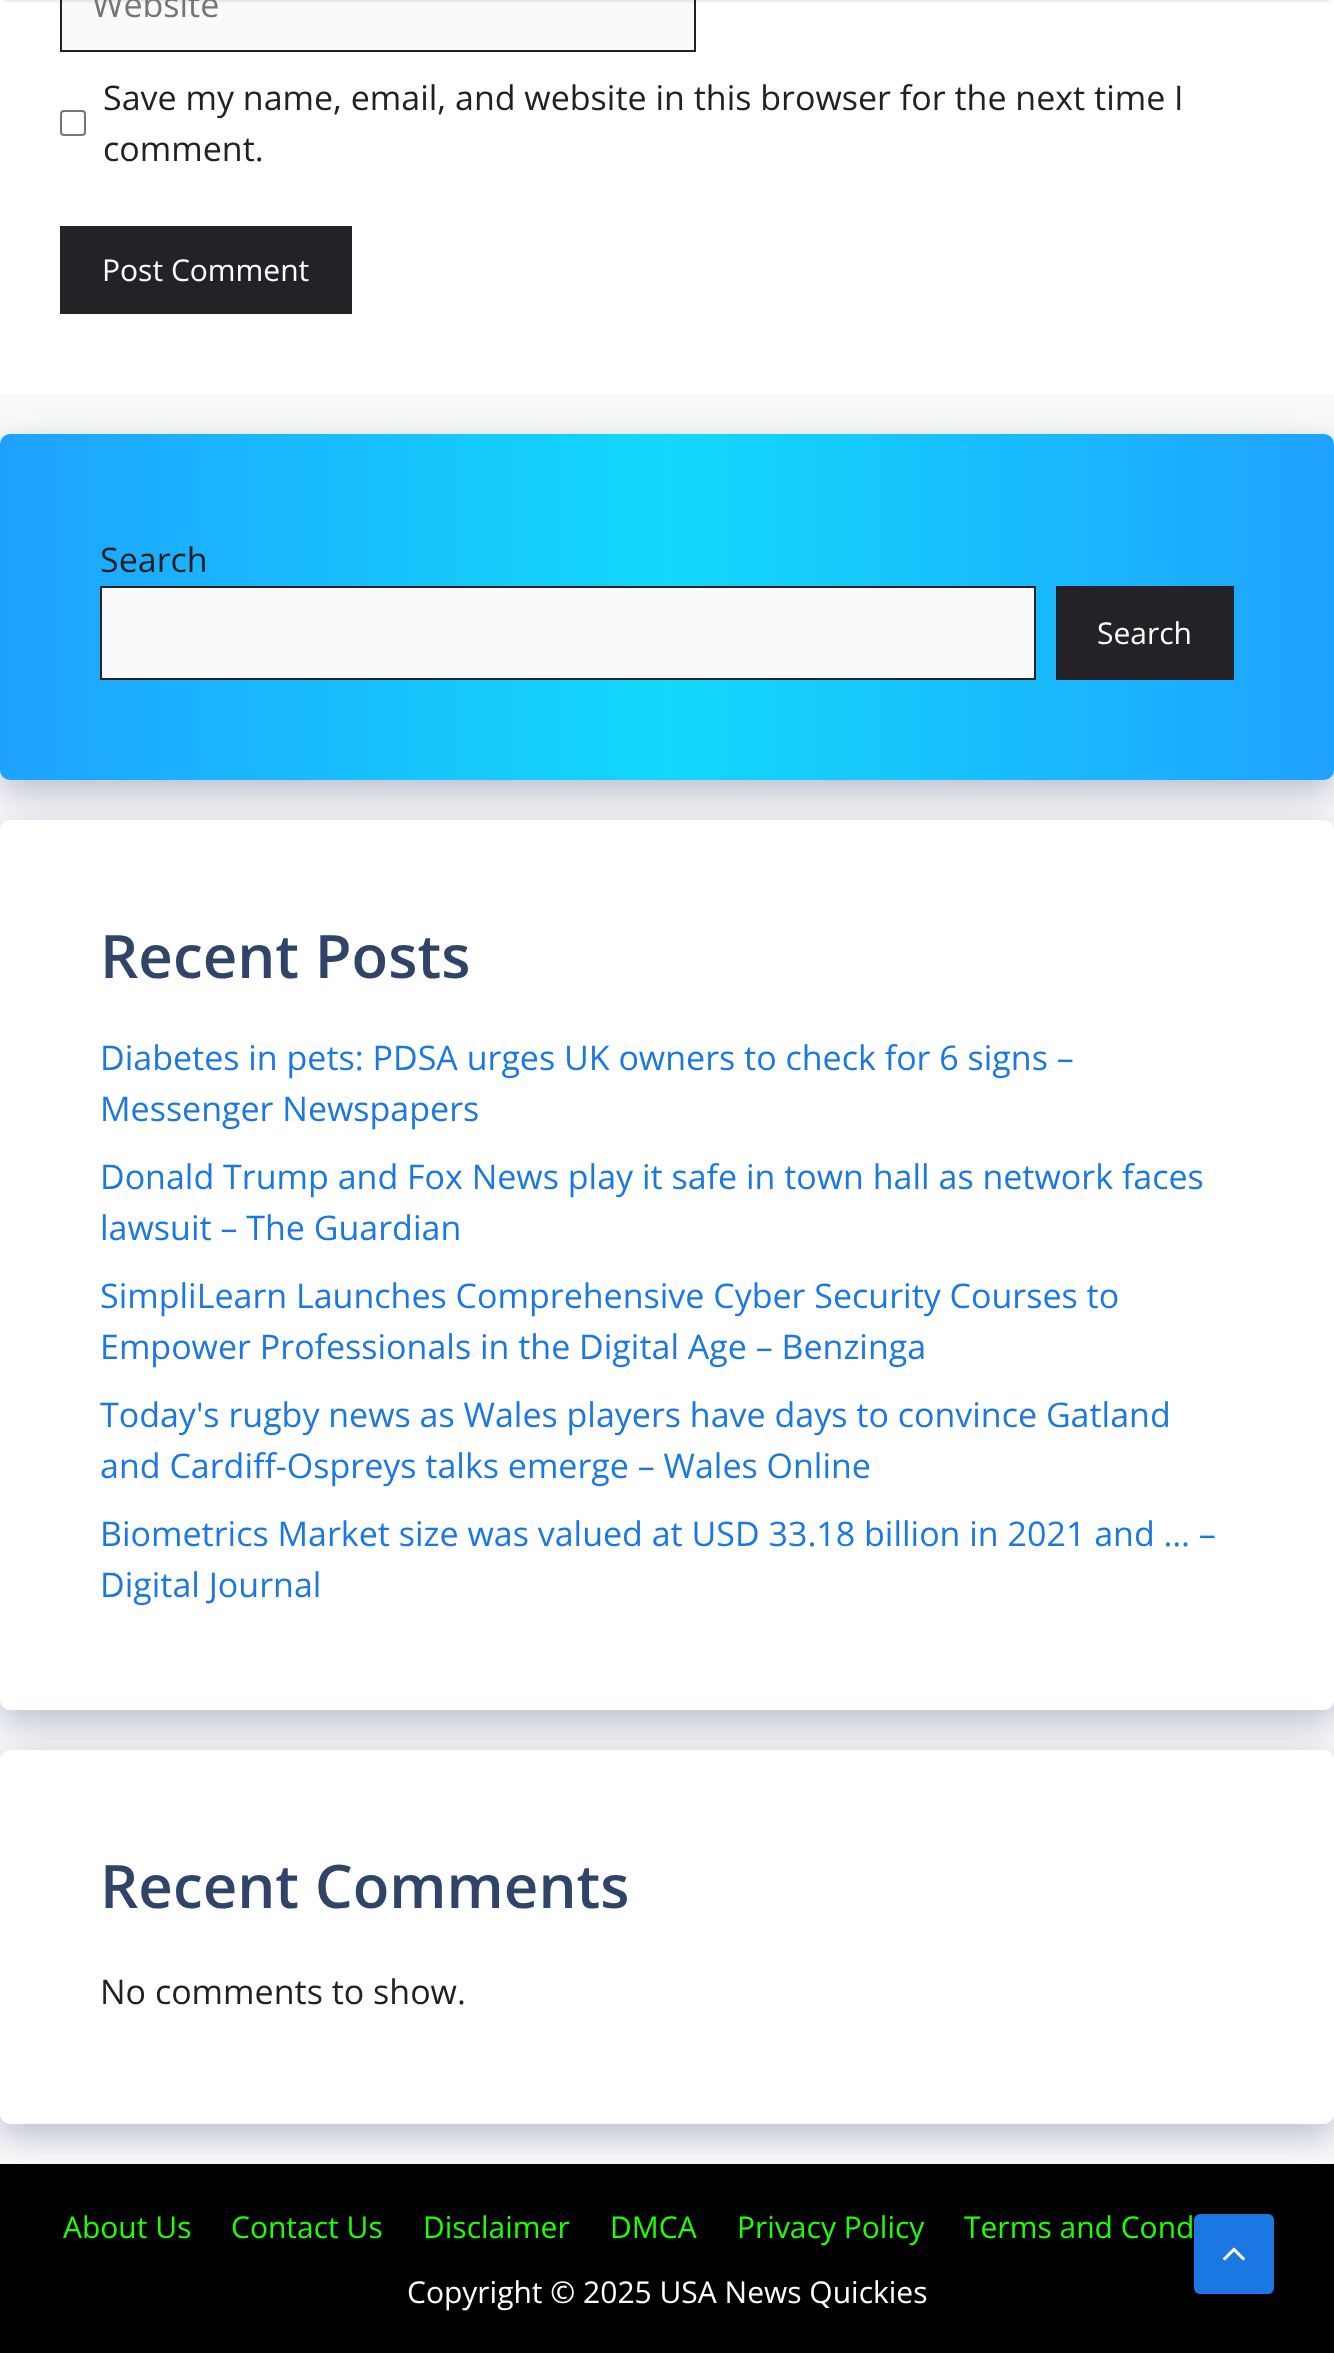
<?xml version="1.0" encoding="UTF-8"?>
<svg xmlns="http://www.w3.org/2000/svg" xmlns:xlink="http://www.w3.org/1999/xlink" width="1334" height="2353">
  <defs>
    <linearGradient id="g1" gradientUnits="userSpaceOnUse" x1="0" y1="607" x2="1334" y2="607"><stop offset="0" stop-color="#1fa2ff" /><stop offset="0.5" stop-color="#12d8fa" /><stop offset="1" stop-color="#1fa2ff" /></linearGradient>
  </defs>
  <rect width="100%" height="100%" fill="#fafafa" />
  <rect width="1334" height="394" fill="#ffffff" />
  <rect x="61" y="-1" width="634" height="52" fill="#fafafa" stroke="#212121" stroke-width="2" />
  <rect x="4" y="-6" width="1326" height="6" fill="#000000" fill-opacity="0.2" filter="blur(2px)" />
  <rect x="61" y="111" width="24" height="24" rx="3" fill="none" stroke="#767676" stroke-width="2" />
  <rect x="60" y="226" width="292" height="88" fill="#242226" />
  <rect y="446" width="1334" height="346" rx="10" fill="#172b63" fill-opacity="0.3" filter="blur(18px)" />
  <rect y="434" width="1334" height="346" rx="10" fill="url(#g1)" />
  <rect x="101" y="587" width="934" height="92" fill="#fafafa" stroke="#212121" stroke-width="2" />
  <rect x="1056" y="586" width="178" height="94" fill="#242226" />
  <rect y="832" width="1334" height="890" rx="10" fill="#172b63" fill-opacity="0.3" filter="blur(18px)" />
  <rect y="820" width="1334" height="890" rx="10" fill="#ffffff" />
  <rect y="2164" width="1334" height="189" fill="#000000" />
  <rect y="1762" width="1334" height="374" rx="10" fill="#172b63" fill-opacity="0.3" filter="blur(18px)" />
  <rect y="1750" width="1334" height="374" rx="10" fill="#ffffff" />
  <rect x="1194" y="2214" width="80" height="80" rx="6" fill="#1b78e2" />
  <image x="1223" y="2247" width="22" height="14" xlink:href="image1.png" />
  <text x="92" y="17" style="font-family: Open Sans; font-size: 34px; fill: #757575">Website</text>
  <text x="103" y="110" style="font-family: Open Sans; font-size: 34px; fill: #212121">Save my name, email, and website in this browser for the next time I</text>
  <text x="103" y="161" style="font-family: Open Sans; font-size: 34px; fill: #212121">comment.</text>
  <text x="102" y="281" style="font-family: Open Sans; font-size: 30px; fill: #ffffff">Post Comment</text>
  <text x="100" y="572" style="font-family: Open Sans; font-size: 34px; fill: #212121">Search</text>
  <text x="1097" y="644" style="font-family: Open Sans; font-size: 30px; fill: #ffffff">Search</text>
  <text x="100" y="978" style="font-family: Open Sans; font-size: 60px; font-weight: 600; fill: #2f4468">Recent Posts</text>
  <text x="100" y="1070" style="font-family: Open Sans; font-size: 34px; fill: #1b78e2">Diabetes in pets: PDSA urges UK owners to check for 6 signs –</text>
  <text x="100" y="1121" style="font-family: Open Sans; font-size: 34px; fill: #1b78e2">Messenger Newspapers</text>
  <text x="100" y="1189" style="font-family: Open Sans; font-size: 34px; fill: #1b78e2">Donald Trump and Fox News play it safe in town hall as network faces</text>
  <text x="100" y="1240" style="font-family: Open Sans; font-size: 34px; fill: #1b78e2">lawsuit – The Guardian</text>
  <text x="100" y="1308" style="font-family: Open Sans; font-size: 34px; fill: #1b78e2">SimpliLearn Launches Comprehensive Cyber Security Courses to</text>
  <text x="100" y="1359" style="font-family: Open Sans; font-size: 34px; fill: #1b78e2">Empower Professionals in the Digital Age – Benzinga</text>
  <text x="100" y="1427" style="font-family: Open Sans; font-size: 34px; fill: #1b78e2">Today's rugby news as Wales players have days to convince Gatland</text>
  <text x="100" y="1478" style="font-family: Open Sans; font-size: 34px; fill: #1b78e2">and Cardiff-Ospreys talks emerge – Wales Online</text>
  <text x="100" y="1546" style="font-family: Open Sans; font-size: 34px; fill: #1b78e2">Biometrics Market size was valued at USD 33.18 billion in 2021 and … –</text>
  <text x="100" y="1597" style="font-family: Open Sans; font-size: 34px; fill: #1b78e2">Digital Journal</text>
  <text x="100" y="1908" style="font-family: Open Sans; font-size: 60px; font-weight: 600; fill: #2f4468">Recent Comments</text>
  <text x="100" y="2004" style="font-family: Open Sans; font-size: 34px; fill: #212121">No comments to show.</text>
  <text x="63" y="2238" style="font-family: Open Sans; font-size: 30px; fill: #1eff00">About Us</text>
  <text x="231" y="2238" style="font-family: Open Sans; font-size: 30px; fill: #1eff00">Contact Us</text>
  <text x="423" y="2238" style="font-family: Open Sans; font-size: 30px; fill: #1eff00">Disclaimer</text>
  <text x="610" y="2238" style="font-family: Open Sans; font-size: 30px; fill: #1eff00">DMCA</text>
  <text x="737" y="2238" style="font-family: Open Sans; font-size: 30px; fill: #1eff00">Privacy Policy</text>
  <text x="964" y="2238" style="font-family: Open Sans; font-size: 30px; fill: #1eff00">Terms and Cond</text>
  <text x="407" y="2303" style="font-family: Open Sans; font-size: 30px; fill: #ffffff">Copyright © 2025 USA News Quickies</text>
</svg>
